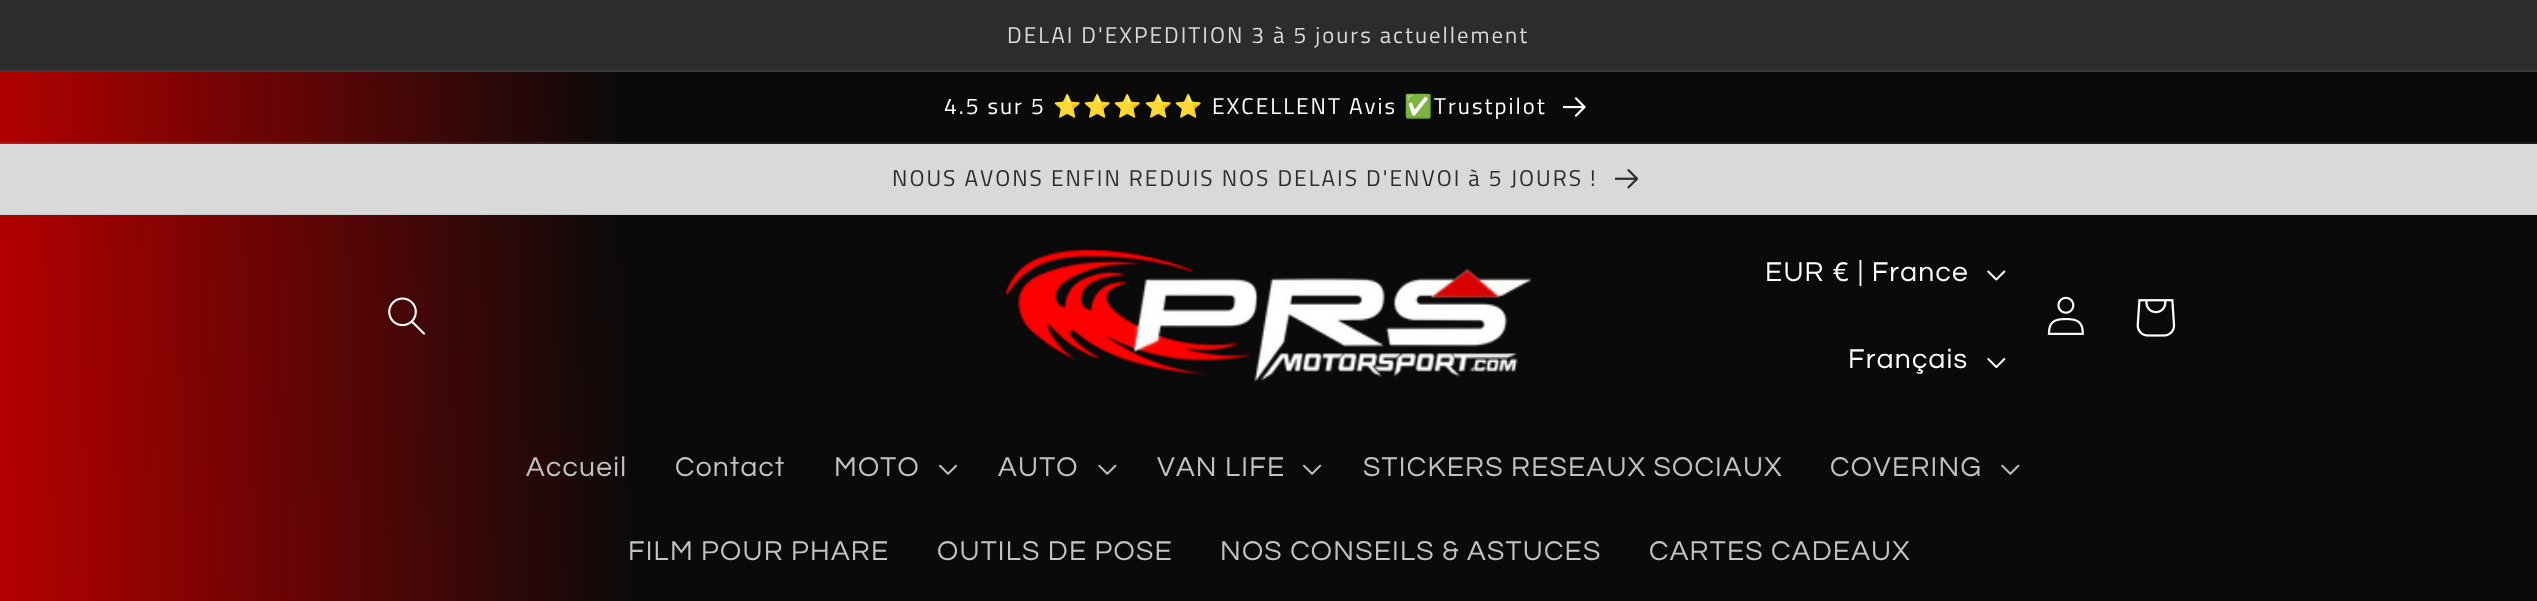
<?xml version="1.0" encoding="UTF-8"?>
<svg xmlns="http://www.w3.org/2000/svg" xmlns:xlink="http://www.w3.org/1999/xlink" width="2537" height="601">
  <style>*{font-kerning:none!important;font-variant-ligatures:none!important}</style>
  <defs>
    <linearGradient id="g1" gradientUnits="userSpaceOnUse" x1="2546" y1="256" x2="-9" y2="346"><stop offset="0.14" stop-color="#0a0a0a" /><stop offset="0.75" stop-color="#0a0a0a" /><stop offset="1" stop-color="#b60000" /></linearGradient>
    <linearGradient id="g2" gradientUnits="userSpaceOnUse" x1="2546" y1="256" x2="-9" y2="346"><stop offset="0.14" stop-color="#1e1e1e" /><stop offset="0.75" stop-color="#1e1e1e" /><stop offset="1" stop-color="#bc1414" /></linearGradient>
    <linearGradient id="g3" gradientUnits="userSpaceOnUse" x1="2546" y1="256" x2="-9" y2="346"><stop offset="0.14" stop-color="#0d0d0d" /><stop offset="0.75" stop-color="#0d0d0d" /><stop offset="1" stop-color="#ab0404" /></linearGradient>
  </defs>
  <rect width="100%" height="100%" fill="#d9d9d9" />
  <rect y="214" width="2537" height="1" fill="#cbcbcb" />
  <rect width="2537" height="70" fill="#2d2c2c" />
  <rect y="70" width="2537" height="2" fill="#3b3a3a" />
  <rect y="72" width="2537" height="70" fill="url(#g1)" />
  <rect y="142" width="2537" height="2" fill="url(#g2)" />
  <image x="1563" y="97" width="23" height="20" xlink:href="image1.png" />
  <image x="1615" y="169" width="24" height="20" xlink:href="image2.png" />
  <rect y="216" width="2537" height="385" fill="url(#g1)" />
  <rect y="215" width="2537" height="1" fill="url(#g3)" />
  <image x="388" y="297" width="37" height="38" xlink:href="image3.png" />
  <image x="1006" y="250" width="526" height="132" xlink:href="image4.png" />
  <image x="1987" y="270" width="19" height="11" xlink:href="image5.png" />
  <image x="1987" y="358" width="19" height="10" xlink:href="image6.png" />
  <image x="2047" y="296" width="37" height="39" xlink:href="image7.png" />
  <image x="2136" y="299" width="40" height="38" xlink:href="image8.png" />
  <image x="939" y="464" width="18" height="11" xlink:href="image9.png" />
  <image x="1098" y="464" width="19" height="11" xlink:href="image10.png" />
  <image x="1303" y="464" width="19" height="11" xlink:href="image11.png" />
  <image x="2001" y="464" width="19" height="11" xlink:href="image10.png" />
  <text x="1007" y="43" style="font-family: Titillium Web; font-size: 22.75px; letter-spacing: 2px; fill: #d9d9d9">DELAI D'EXPEDITION 3 à 5 jours actuellement</text>
  <text x="944" y="114" style="font-family: Titillium Web; font-size: 22.75px; letter-spacing: 2px; fill: #ffffff">4.5 sur 5</text>
  <text x="1053" y="114" style="font-family: Noto Color Emoji; font-size: 22.75px; letter-spacing: 2px; fill: #ffffff">⭐⭐⭐⭐⭐</text>
  <text x="1212" y="114" style="font-family: Titillium Web; font-size: 22.75px; letter-spacing: 2px; fill: #ffffff">EXCELLENT Avis</text>
  <text x="1404" y="114" style="font-family: Noto Color Emoji; font-size: 22.75px; letter-spacing: 2px; fill: #ffffff">✅</text>
  <text x="1434" y="114" style="font-family: Titillium Web; font-size: 22.75px; letter-spacing: 2px; fill: #ffffff">Trustpilot</text>
  <text x="892" y="186" style="font-family: Titillium Web; font-size: 22.75px; letter-spacing: 2px; fill: #2d2c2c">NOUS AVONS ENFIN REDUIS NOS DELAIS D'ENVOI à 5 JOURS !</text>
  <text x="1765" y="281" style="font-family: Questrial; font-size: 28.2px; letter-spacing: 1.25px; fill: #ffffff">EUR € | France</text>
  <text x="1848" y="368" style="font-family: Questrial; font-size: 28.2px; letter-spacing: 1.25px; fill: #ffffff">Français</text>
  <text x="526" y="476" style="font-family: Questrial; font-size: 28.2px; letter-spacing: 1.25px; fill: #c6c2c2">Accueil</text>
  <text x="675" y="476" style="font-family: Questrial; font-size: 28.2px; letter-spacing: 1.25px; fill: #c6c2c2">Contact</text>
  <text x="834" y="476" style="font-family: Questrial; font-size: 28.2px; letter-spacing: 1.25px; fill: #c6c2c2">MOTO</text>
  <text x="998" y="476" style="font-family: Questrial; font-size: 28.2px; letter-spacing: 1.25px; fill: #c6c2c2">AUTO</text>
  <text x="1157" y="476" style="font-family: Questrial; font-size: 28.2px; letter-spacing: 1.25px; fill: #c6c2c2">VAN LIFE</text>
  <text x="1363" y="476" style="font-family: Questrial; font-size: 28.2px; letter-spacing: 1.25px; fill: #c6c2c2">STICKERS RESEAUX SOCIAUX</text>
  <text x="1830" y="476" style="font-family: Questrial; font-size: 28.2px; letter-spacing: 1.25px; fill: #c6c2c2">COVERING</text>
  <text x="628" y="560" style="font-family: Questrial; font-size: 28.2px; letter-spacing: 1.25px; fill: #c6c2c2">FILM POUR PHARE</text>
  <text x="937" y="560" style="font-family: Questrial; font-size: 28.2px; letter-spacing: 1.25px; fill: #c6c2c2">OUTILS DE POSE</text>
  <text x="1220" y="560" style="font-family: Questrial; font-size: 28.2px; letter-spacing: 1.25px; fill: #c6c2c2">NOS CONSEILS &amp; ASTUCES</text>
  <text x="1649" y="560" style="font-family: Questrial; font-size: 28.2px; letter-spacing: 1.25px; fill: #c6c2c2">CARTES CADEAUX</text>
</svg>
